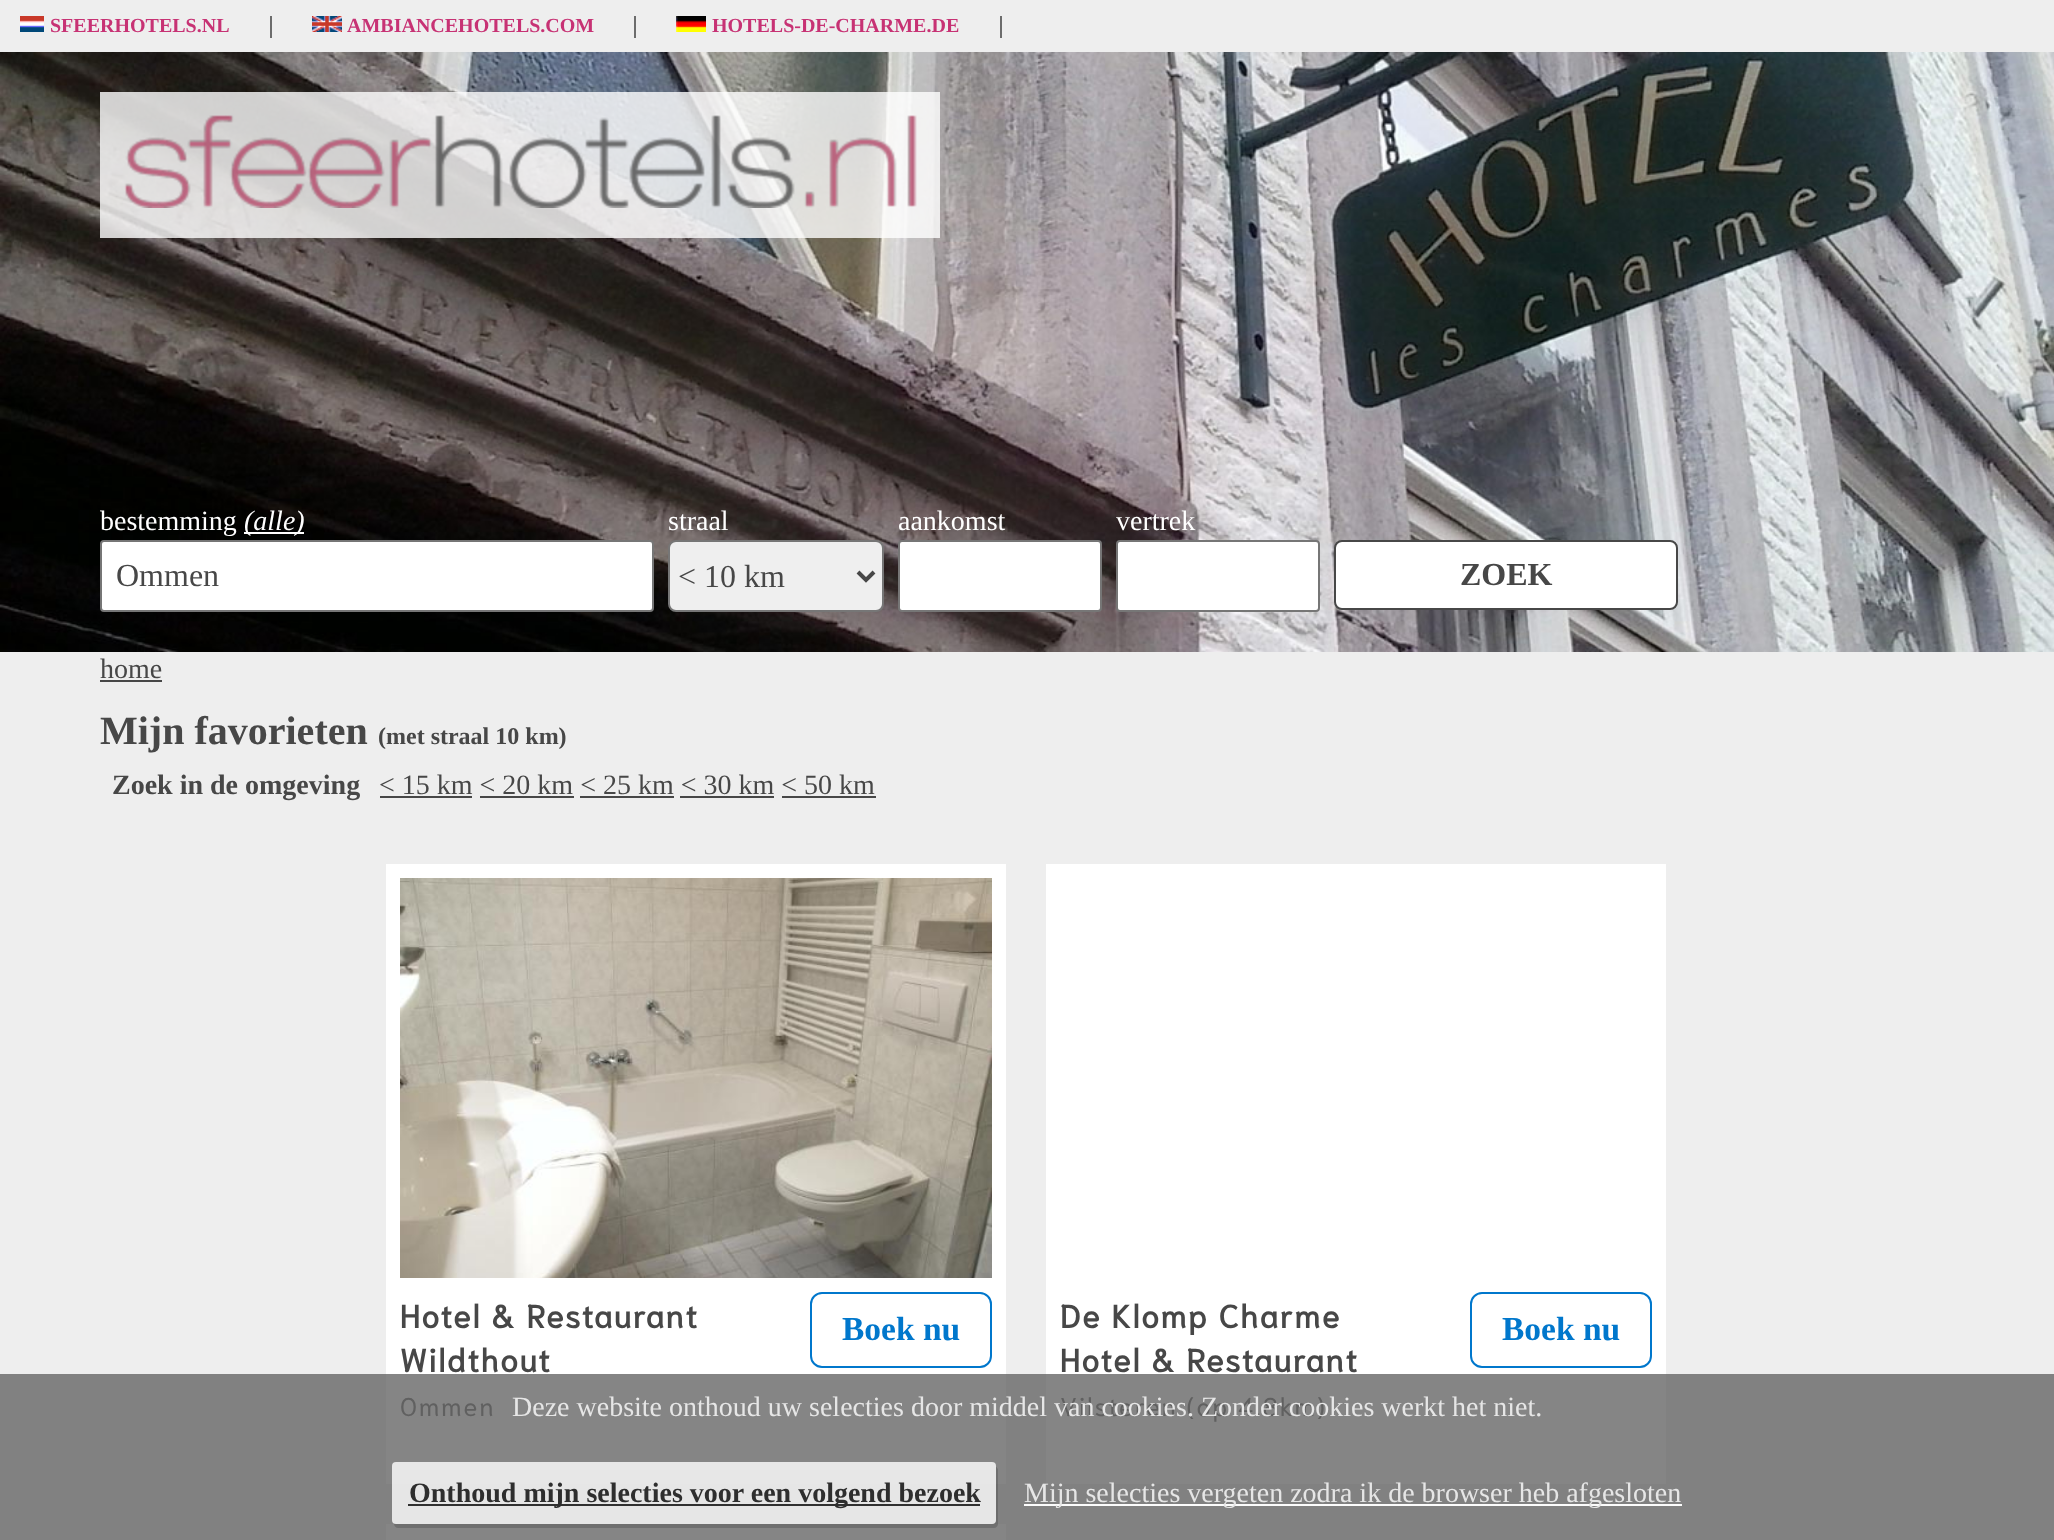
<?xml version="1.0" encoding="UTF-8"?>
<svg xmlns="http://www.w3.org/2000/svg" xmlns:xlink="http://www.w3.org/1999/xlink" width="2054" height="1540">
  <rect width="100%" height="100%" fill="#eeeeee" />
  <rect y="1374" width="2054" height="166" fill="#818181" />
  <rect x="270" y="16" width="2" height="22" fill="#6c6c6c" />
  <image x="20" y="16" width="24" height="16" xlink:href="image1.png" />
  <rect x="634" y="16" width="2" height="22" fill="#6c6c6c" />
  <image x="312" y="16" width="30" height="16" xlink:href="image2.png" />
  <rect x="1000" y="16" width="2" height="22" fill="#6c6c6c" />
  <image x="676" y="16" width="30" height="16" xlink:href="image3.png" />
  <image x="0" y="52" width="2054" height="600" xlink:href="image4.png" />
  <rect x="100" y="92" width="840" height="146" fill="#ffffff" fill-opacity="0.8" />
  <image x="124" y="115" width="793" height="93" xlink:href="image5.png" />
  <rect x="244" y="532" width="60" height="2" fill="#ffffff" />
  <rect x="101" y="541" width="552" height="70" rx="3" fill="#ffffff" stroke="#767676" stroke-width="2" />
  <rect x="669" y="541" width="214" height="70" rx="7" fill="#efefef" stroke="#767676" stroke-width="2" />
  <path d="M 858 572 l 8 8 l 8 -8" fill="none" stroke="#474747" stroke-width="4" />
  <rect x="899" y="541" width="202" height="70" rx="3" fill="#ffffff" stroke="#767676" stroke-width="2" />
  <rect x="1117" y="541" width="202" height="70" rx="3" fill="#ffffff" stroke="#767676" stroke-width="2" />
  <rect x="1335" y="541" width="342" height="68" rx="7" fill="#ffffff" stroke="#474747" stroke-width="2" />
  <rect x="100" y="680" width="62" height="2" fill="#474747" />
  <rect x="380" y="796" width="92" height="2" fill="#474747" />
  <rect x="480" y="796" width="94" height="2" fill="#474747" />
  <rect x="580" y="796" width="94" height="2" fill="#474747" />
  <rect x="680" y="796" width="94" height="2" fill="#474747" />
  <rect x="782" y="796" width="94" height="2" fill="#474747" />
  <rect x="386" y="864" width="620" height="510" fill="#ffffff" />
  <rect x="386" y="1374" width="620" height="110" fill="#858585" />
  <image x="400" y="878" width="592" height="400" xlink:href="image6.png" />
  <rect x="811" y="1293" width="180" height="74" rx="11" fill="none" stroke="#0077cc" stroke-width="2" />
  <rect x="1046" y="864" width="620" height="510" fill="#ffffff" />
  <rect x="1046" y="1374" width="620" height="110" fill="#858585" />
  <rect x="1471" y="1293" width="180" height="74" rx="11" fill="none" stroke="#0077cc" stroke-width="2" />
  <rect x="386" y="1524" width="620" height="16" fill="#858585" />
  <path d="M 394 1523 v 1 c 0 2 2 4 4 4 h 596 c 2 0 4 -2 4 -4 v -54 c 0 -1 -1 -3 -2 -3 v 53 c 0 2 -2 4 -4 4 h -596 z" fill="#000000" fill-opacity="0.16" />
  <rect x="392" y="1462" width="604" height="62" rx="4" fill="#ffffff" fill-opacity="0.8" />
  <rect x="408" y="1504" width="572" height="2" fill="#303030" />
  <rect x="1024" y="1504" width="658" height="2" fill="#fcfcfc" />
  <text x="50" y="32" style="font-family: Liberation Serif; font-size: 20px; font-weight: bold; fill: #c73274">SFEERHOTELS.NL</text>
  <text x="347" y="32" style="font-family: Liberation Serif; font-size: 20px; font-weight: bold; fill: #c73274">AMBIANCEHOTELS.COM</text>
  <text x="712" y="32" style="font-family: Liberation Serif; font-size: 20px; font-weight: bold; fill: #c73274">HOTELS-DE-CHARME.DE</text>
  <text x="100" y="530" style="font-family: Liberation Serif; font-size: 28px; fill: #ffffff">bestemming</text>
  <text x="244" y="530" style="font-family: Liberation Serif; font-size: 28px; font-style: italic; fill: #ffffff">(alle)</text>
  <text x="116" y="586" style="font-family: Liberation Serif; font-size: 32px; fill: #474747">Ommen</text>
  <text x="668" y="530" style="font-family: Liberation Serif; font-size: 28px; fill: #ffffff">straal</text>
  <text x="678" y="587" style="font-family: Liberation Serif; font-size: 32px; fill: #474747">&lt; 10 km</text>
  <text x="898" y="530" style="font-family: Liberation Serif; font-size: 28px; fill: #ffffff">aankomst</text>
  <text x="1116" y="530" style="font-family: Liberation Serif; font-size: 28px; fill: #ffffff">vertrek</text>
  <text x="1460" y="585" style="font-family: Liberation Serif; font-size: 32px; font-weight: bold; fill: #474747">ZOEK</text>
  <text x="100" y="678" style="font-family: Liberation Serif; font-size: 28px; fill: #474747">home</text>
  <text x="100" y="744" style="font-family: Liberation Serif; font-size: 40px; font-weight: bold; fill: #474747">Mijn favorieten</text>
  <text x="378" y="744" style="font-family: Liberation Serif; font-size: 24px; font-weight: bold; fill: #474747">(met straal 10 km)</text>
  <text x="112" y="794" style="font-family: Liberation Serif; font-size: 28px; font-weight: bold; fill: #474747">Zoek in de omgeving</text>
  <text x="379" y="794" style="font-family: Liberation Serif; font-size: 28px; fill: #474747">&lt; 15 km &lt; 20 km &lt; 25 km &lt; 30 km &lt; 50 km</text>
  <text x="400" y="1328" style="font-family: Niramit; font-size: 32px; font-weight: bold; letter-spacing: 2px; fill: #474747">Hotel &amp; Restaurant</text>
  <text x="400" y="1372" style="font-family: Niramit; font-size: 32px; font-weight: bold; letter-spacing: 2px; fill: #474747">Wildthout</text>
  <text x="400" y="1416" style="font-family: Niramit; font-size: 25.6px; letter-spacing: 2px; fill: #606060">Ommen</text>
  <text x="842" y="1340" style="font-family: Liberation Serif; font-size: 33.5px; font-weight: bold; fill: #0077cc">Boek nu</text>
  <text x="1060" y="1328" style="font-family: Niramit; font-size: 32px; font-weight: bold; letter-spacing: 2px; fill: #474747">De Klomp Charme</text>
  <text x="1060" y="1372" style="font-family: Niramit; font-size: 32px; font-weight: bold; letter-spacing: 2px; fill: #474747">Hotel &amp; Restaurant</text>
  <text x="1060" y="1416" style="font-family: Niramit; font-size: 25.6px; letter-spacing: 2px; fill: #606060">Vilsteren (op 4.8km)</text>
  <text x="1502" y="1340" style="font-family: Liberation Serif; font-size: 33.5px; font-weight: bold; fill: #0077cc">Boek nu</text>
  <text x="512" y="1416" style="font-family: Liberation Serif; font-size: 28px; fill: #e6e6e6">Deze website onthoud uw selecties door middel van cookies. Zonder cookies werkt het niet.</text>
  <text x="409" y="1502" style="font-family: Liberation Serif; font-size: 28px; font-weight: bold; fill: #2e2e2e">Onthoud mijn selecties voor een volgend bezoek</text>
  <text x="1024" y="1502" style="font-family: Liberation Serif; font-size: 28px; fill: #e6e6e6">Mijn selecties vergeten zodra ik de browser heb afgesloten</text>
</svg>
